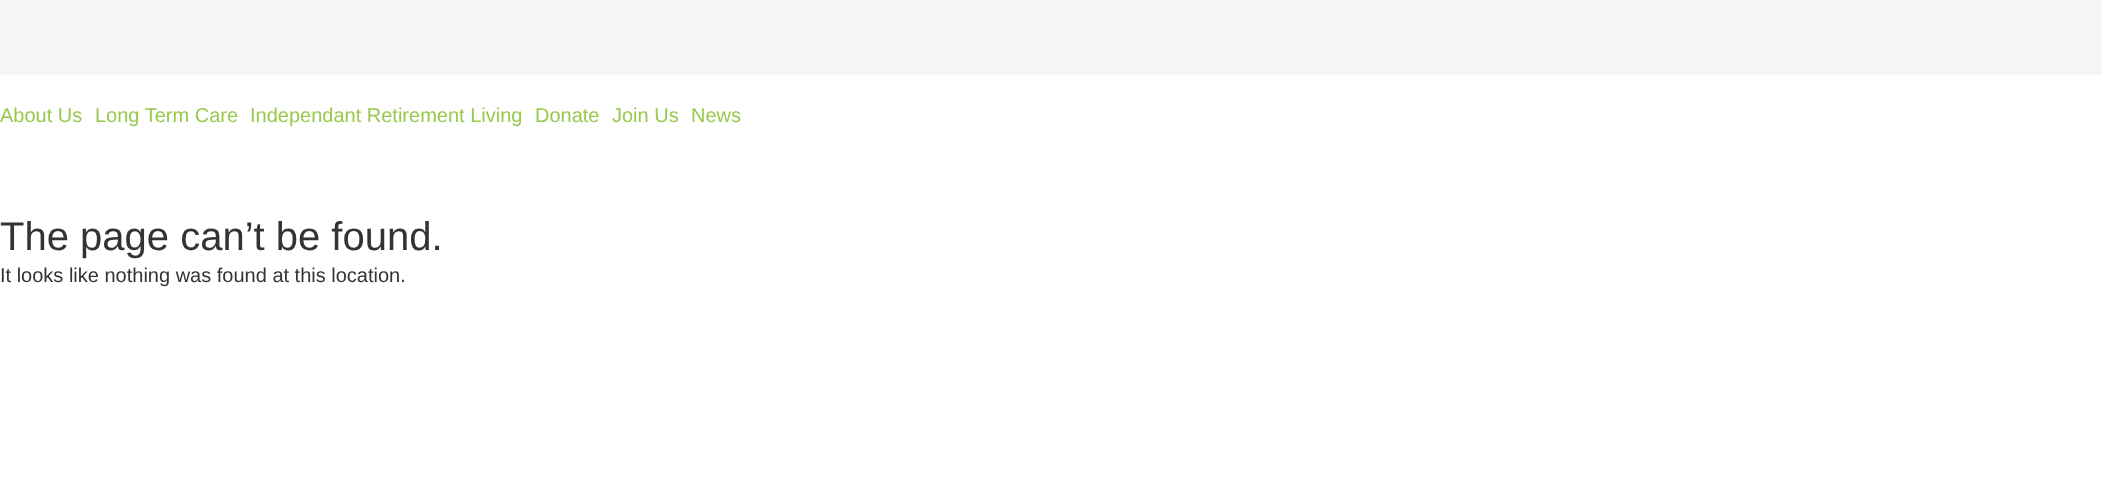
<?xml version="1.0" encoding="UTF-8"?>
<svg xmlns="http://www.w3.org/2000/svg" xmlns:xlink="http://www.w3.org/1999/xlink" width="2102" height="491">
  <rect width="100%" height="100%" fill="#ffffff" />
  <rect width="2102" height="75" fill="#f5f5f5" />
  <text x="0" y="122" style="font-family: Liberation Sans; font-size: 20px; fill: #97c94c">About Us</text>
  <text x="95" y="122" style="font-family: Liberation Sans; font-size: 20px; fill: #97c94c">Long Term Care</text>
  <text x="250" y="122" style="font-family: Liberation Sans; font-size: 20px; fill: #97c94c">Independant Retirement Living</text>
  <text x="535" y="122" style="font-family: Liberation Sans; font-size: 20px; fill: #97c94c">Donate</text>
  <text x="612" y="122" style="font-family: Liberation Sans; font-size: 20px; fill: #97c94c">Join Us</text>
  <text x="691" y="122" style="font-family: Liberation Sans; font-size: 20px; fill: #97c94c">News</text>
  <text x="0" y="250" style="font-family: Liberation Sans; font-size: 40px; fill: #333333">The page can’t be found.</text>
  <text x="0" y="282" style="font-family: Liberation Sans; font-size: 20px; fill: #333333">It looks like nothing was found at this location.</text>
</svg>
